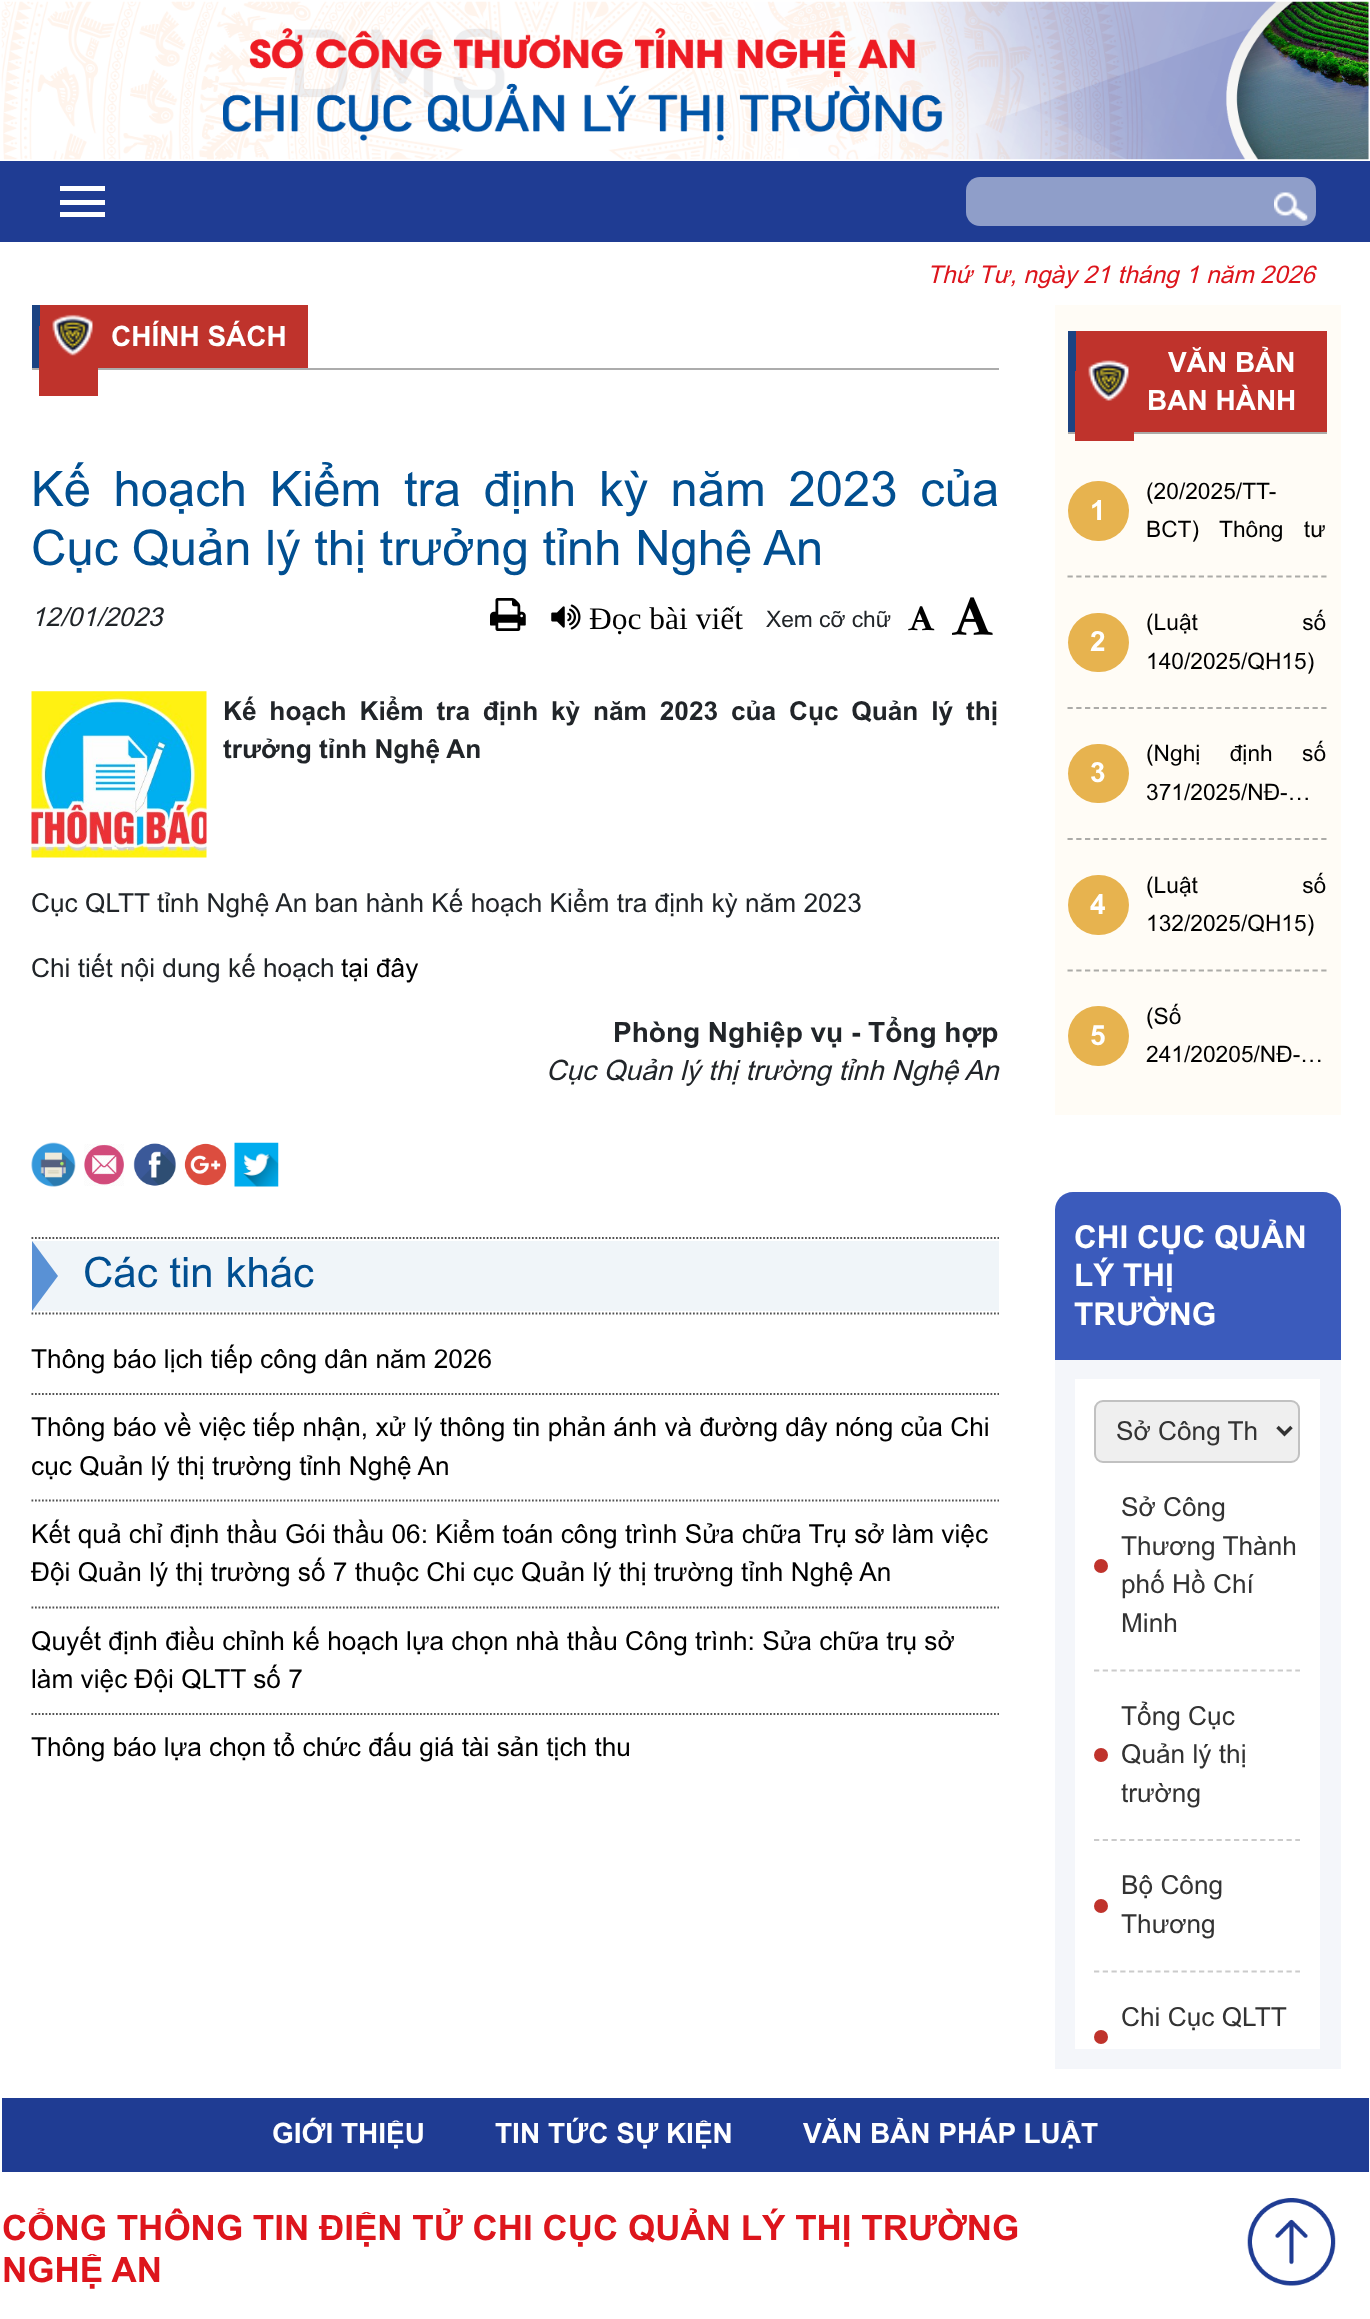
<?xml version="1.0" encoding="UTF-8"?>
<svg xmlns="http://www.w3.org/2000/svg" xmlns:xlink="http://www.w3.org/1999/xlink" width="1370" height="2319">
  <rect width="100%" height="100%" fill="#ffffff" />
  <rect x="1368" y="2" width="1" height="157" fill="#f3f4f5" />
  <image x="1" y="1" width="1368" height="159" xlink:href="image1.png" />
  <rect y="161" width="1370" height="81" fill="#1f3c93" />
  <rect x="60" y="186" width="45" height="5" fill="#ffffff" />
  <rect x="60" y="200" width="45" height="5" fill="#ffffff" />
  <rect x="60" y="212" width="45" height="5" fill="#ffffff" />
  <rect x="966" y="177" width="350" height="49" rx="14" fill="#8f9ec9" />
  <image x="1274" y="192" width="34" height="29" xlink:href="image2.png" />
  <rect x="32" y="368" width="967" height="2" fill="#acacac" />
  <rect x="40" y="305" width="268" height="63" fill="#bf332c" />
  <rect x="32" y="305" width="8" height="63" fill="#1c4382" />
  <rect x="39" y="326" width="59" height="70" fill="#bf332c" />
  <image x="52" y="314" width="41" height="42" xlink:href="image3.png" />
  <image x="490" y="598" width="36" height="33" xlink:href="image4.png" />
  <image x="551" y="604" width="30" height="26" xlink:href="image5.png" />
  <image x="908" y="606" width="27" height="25" xlink:href="image6.png" />
  <image x="952" y="597" width="41" height="38" xlink:href="image7.png" />
  <image x="31" y="691" width="176" height="167" xlink:href="image8.png" />
  <image x="31" y="1142" width="45" height="45" xlink:href="image9.png" />
  <image x="84" y="1144" width="40" height="42" xlink:href="image10.png" />
  <image x="133" y="1143" width="43" height="43" xlink:href="image11.png" />
  <image x="184" y="1143" width="43" height="43" xlink:href="image12.png" />
  <image x="234" y="1142" width="45" height="45" xlink:href="image13.png" />
  <path d="M 31.5 1238 h 967.5" fill="none" stroke="#515151" stroke-width="1.8" stroke-dasharray="1.75 1.75" />
  <path d="M 31.5 1313.5 h 967.5" fill="none" stroke="#515151" stroke-width="1.8" stroke-dasharray="1.75 1.75" />
  <rect x="32" y="1241" width="967" height="70" fill="#f0f5f9" />
  <path d="M 32 1311 v -70 l 26 35 z" fill="#5991d5" />
  <path d="M 31.5 1394 h 967.5" fill="none" stroke="#515151" stroke-width="1.8" stroke-dasharray="1.75 1.75" />
  <path d="M 31.5 1500.5 h 967.5" fill="none" stroke="#515151" stroke-width="1.8" stroke-dasharray="1.75 1.75" />
  <path d="M 31.5 1607.5 h 967.5" fill="none" stroke="#515151" stroke-width="1.8" stroke-dasharray="1.75 1.75" />
  <path d="M 31.5 1714 h 967.5" fill="none" stroke="#515151" stroke-width="1.8" stroke-dasharray="1.75 1.75" />
  <rect x="1055" y="305" width="286" height="810" fill="#fffcf6" />
  <rect x="1068" y="432" width="259" height="2" fill="#acaba8" />
  <rect x="1076" y="331" width="251" height="101" fill="#bf332c" />
  <rect x="1068" y="331" width="8" height="101" fill="#1c4382" />
  <rect x="1075" y="371" width="59" height="70" fill="#bf332c" />
  <image x="1088" y="360" width="41" height="41" xlink:href="image14.png" />
  <path d="M 1067.5 576.5 h 259" fill="none" stroke="#acaba8" stroke-width="1.8" stroke-dasharray="5.25 3.5" />
  <rect x="1068" y="481" width="61" height="60" rx="30" fill="#e7b34f" />
  <path d="M 1067.5 708 h 259" fill="none" stroke="#acaba8" stroke-width="1.8" stroke-dasharray="5.25 3.5" />
  <rect x="1068" y="613" width="61" height="59" rx="29.5" fill="#e7b34f" />
  <path d="M 1067.5 839 h 259" fill="none" stroke="#acaba8" stroke-width="1.8" stroke-dasharray="5.25 3.5" />
  <rect x="1068" y="744" width="61" height="59" rx="29.5" fill="#e7b34f" />
  <path d="M 1067.5 970.5 h 259" fill="none" stroke="#acaba8" stroke-width="1.8" stroke-dasharray="5.25 3.5" />
  <rect x="1068" y="875" width="61" height="60" rx="30" fill="#e7b34f" />
  <rect x="1068" y="1006" width="61" height="60" rx="30" fill="#e7b34f" />
  <path d="M 1073 1192 h 250 c 10 0 18 8 18 18 v 150 h -286 v -150 c 0 -10 8 -18 18 -18 z" fill="#3b5bbc" />
  <rect x="1055" y="1360" width="286" height="709" fill="#f4f6fa" />
  <rect x="1075" y="1379" width="245" height="670" fill="#ffffff" />
  <rect x="1094" y="1400" width="206" height="63" rx="9" fill="#efefef" />
  <rect x="1095" y="1401" width="204" height="61" rx="8" fill="none" stroke="#595959" stroke-opacity="0.31" stroke-width="2" />
  <path d="M 1277.5 1427 l 7 7 l 7 -7" fill="none" stroke="#333333" stroke-width="3.5" />
  <path d="M 1094 1670.5 h 206" fill="none" stroke="#cbcbcb" stroke-width="1.8" stroke-dasharray="5.25 3.5" />
  <circle cx="1101" cy="1566" r="7" fill="#bf332c" />
  <path d="M 1094 1840 h 206" fill="none" stroke="#cbcbcb" stroke-width="1.8" stroke-dasharray="5.25 3.5" />
  <circle cx="1101" cy="1755" r="7" fill="#bf332c" />
  <path d="M 1094 1971.5 h 206" fill="none" stroke="#cbcbcb" stroke-width="1.8" stroke-dasharray="5.25 3.5" />
  <circle cx="1101" cy="1906" r="7" fill="#bf332c" />
  <circle cx="1101" cy="2037" r="7" fill="#bf332c" />
  <rect x="2" y="2098" width="1367" height="74" fill="#1f3c93" />
  <image x="1247" y="2198" width="89" height="88" xlink:href="image15.png" />
  <text x="927" y="283" style="font-family: Arial; font-size: 24.5px; font-style: italic; fill: #dd151c">Thứ Tư, ngày 21 tháng 1 năm 2026</text>
  <text x="111" y="346" style="font-family: Arial; font-size: 28px; font-weight: bold; fill: #ffffff">CHÍNH SÁCH</text>
  <text x="31" y="506" word-spacing="9" style="font-family: Arial; font-size: 49px; fill: #014f91">Kế hoạch Kiểm tra định kỳ năm 2023 của</text>
  <text x="31" y="565" style="font-family: Arial; font-size: 49px; fill: #014f91">Cục Quản lý thị trưởng tỉnh Nghệ An</text>
  <text x="31" y="626" style="font-family: Arial; font-size: 26.25px; font-style: italic; fill: #212529">12/01/2023</text>
  <text x="589" y="629" style="font-family: Liberation Serif; font-size: 31.5px; fill: #000000">Đọc bài viết</text>
  <text x="766" y="627" style="font-family: Arial; font-size: 22.75px; fill: #212529">Xem cỡ chữ</text>
  <text x="223" y="720" word-spacing="5.5" style="font-family: Arial; font-size: 26.25px; font-weight: bold; fill: #212529">Kế hoạch Kiểm tra định kỳ năm 2023 của Cục Quản lý thị</text>
  <text x="223" y="758" style="font-family: Arial; font-size: 26.25px; font-weight: bold; fill: #212529">trưởng tỉnh Nghệ An</text>
  <text x="31" y="912" style="font-family: Arial; font-size: 26.25px; fill: #212529">Cục QLTT tỉnh Nghệ An ban hành Kế hoạch Kiểm tra định kỳ năm 2023</text>
  <text x="31" y="977" style="font-family: Arial; font-size: 26.25px; fill: #212529">Chi tiết nội dung kế hoạch</text>
  <text x="341" y="977" style="font-family: Arial; font-size: 26.25px; fill: #000000">tại đây</text>
  <text x="613" y="1042" style="font-family: Arial; font-size: 28px; font-weight: bold; fill: #212529">Phòng Nghiệp vụ - Tổng hợp</text>
  <text x="546" y="1080" style="font-family: Arial; font-size: 28px; font-style: italic; fill: #212529">Cục Quản lý thị trường tỉnh Nghệ An</text>
  <text x="83" y="1287" style="font-family: Arial; font-size: 42px; fill: #014f91">Các tin khác</text>
  <text x="31" y="1368" style="font-family: Arial; font-size: 26.25px; fill: #000000">Thông báo lịch tiếp công dân năm 2026</text>
  <text x="31" y="1436" style="font-family: Arial; font-size: 26.25px; fill: #000000">Thông báo về việc tiếp nhận, xử lý thông tin phản ánh và đường dây nóng của Chi</text>
  <text x="31" y="1475" style="font-family: Arial; font-size: 26.25px; fill: #000000">cục Quản lý thị trường tỉnh Nghệ An</text>
  <text x="31" y="1543" style="font-family: Arial; font-size: 26.25px; fill: #000000">Kết quả chỉ định thầu Gói thầu 06: Kiểm toán công trình Sửa chữa Trụ sở làm việc</text>
  <text x="31" y="1581" style="font-family: Arial; font-size: 26.25px; fill: #000000">Đội Quản lý thị trường số 7 thuộc Chi cục Quản lý thị trường tỉnh Nghệ An</text>
  <text x="31" y="1650" style="font-family: Arial; font-size: 26.25px; fill: #000000">Quyết định điều chỉnh kế hoạch lựa chọn nhà thầu Công trình: Sửa chữa trụ sở</text>
  <text x="31" y="1688" style="font-family: Arial; font-size: 26.25px; fill: #000000">làm việc Đội QLTT số 7</text>
  <text x="31" y="1756" style="font-family: Arial; font-size: 26.25px; fill: #000000">Thông báo lựa chọn tổ chức đấu giá tài sản tịch thu</text>
  <text x="1168" y="372" style="font-family: Arial; font-size: 28px; font-weight: bold; fill: #ffffff">VĂN BẢN</text>
  <text x="1147" y="410" style="font-family: Arial; font-size: 28px; font-weight: bold; fill: #ffffff">BAN HÀNH</text>
  <text x="1090" y="520" style="font-family: Arial; font-size: 28px; font-weight: bold; fill: #ffffff">1</text>
  <text x="1146" y="499" style="font-family: Arial; font-size: 22.75px; fill: #000000">(20/2025/TT-</text>
  <text x="1146" y="537" word-spacing="14" style="font-family: Arial; font-size: 22.75px; fill: #000000">BCT) Thông tư</text>
  <text x="1090" y="651" style="font-family: Arial; font-size: 28px; font-weight: bold; fill: #ffffff">2</text>
  <text x="1146" y="630" word-spacing="98" style="font-family: Arial; font-size: 22.75px; fill: #000000">(Luật số</text>
  <text x="1146" y="669" style="font-family: Arial; font-size: 22.75px; fill: #000000">140/2025/QH15)</text>
  <text x="1090" y="782" style="font-family: Arial; font-size: 28px; font-weight: bold; fill: #ffffff">3</text>
  <text x="1146" y="761" word-spacing="23" style="font-family: Arial; font-size: 22.75px; fill: #000000">(Nghị định số</text>
  <text x="1146" y="800" style="font-family: Arial; font-size: 22.75px; fill: #000000">371/2025/NĐ-…</text>
  <text x="1090" y="914" style="font-family: Arial; font-size: 28px; font-weight: bold; fill: #ffffff">4</text>
  <text x="1146" y="893" word-spacing="98" style="font-family: Arial; font-size: 22.75px; fill: #000000">(Luật số</text>
  <text x="1146" y="931" style="font-family: Arial; font-size: 22.75px; fill: #000000">132/2025/QH15)</text>
  <text x="1090" y="1045" style="font-family: Arial; font-size: 28px; font-weight: bold; fill: #ffffff">5</text>
  <text x="1146" y="1024" style="font-family: Arial; font-size: 22.75px; fill: #000000">(Số</text>
  <text x="1146" y="1062" style="font-family: Arial; font-size: 22.75px; fill: #000000">241/20205/NĐ-…</text>
  <text x="1074" y="1248" style="font-family: Arial; font-size: 31.5px; font-weight: bold; fill: #ffffff">CHI CỤC QUẢN</text>
  <text x="1074" y="1286" style="font-family: Arial; font-size: 31.5px; font-weight: bold; fill: #ffffff">LÝ THỊ</text>
  <text x="1074" y="1325" style="font-family: Arial; font-size: 31.5px; font-weight: bold; fill: #ffffff">TRƯỜNG</text>
  <text x="1116" y="1440" style="font-family: Arial; font-size: 26.25px; fill: #333333">Sở Công Th</text>
  <text x="1121" y="1516" style="font-family: Arial; font-size: 26.25px; fill: #333333">Sở Công</text>
  <text x="1121" y="1555" style="font-family: Arial; font-size: 26.25px; fill: #333333">Thương Thành</text>
  <text x="1121" y="1593" style="font-family: Arial; font-size: 26.25px; fill: #333333">phố Hồ Chí</text>
  <text x="1121" y="1632" style="font-family: Arial; font-size: 26.25px; fill: #333333">Minh</text>
  <text x="1121" y="1725" style="font-family: Arial; font-size: 26.25px; fill: #333333">Tổng Cục</text>
  <text x="1121" y="1763" style="font-family: Arial; font-size: 26.25px; fill: #333333">Quản lý thị</text>
  <text x="1121" y="1802" style="font-family: Arial; font-size: 26.25px; fill: #333333">trường</text>
  <text x="1121" y="1894" style="font-family: Arial; font-size: 26.25px; fill: #333333">Bộ Công</text>
  <text x="1121" y="1933" style="font-family: Arial; font-size: 26.25px; fill: #333333">Thương</text>
  <text x="1121" y="2026" style="font-family: Arial; font-size: 26.25px; fill: #333333">Chi Cục QLTT</text>
  <text x="272" y="2143" style="font-family: Arial; font-size: 28px; font-weight: bold; fill: #ffffff">GIỚI THIỆU</text>
  <text x="495" y="2143" style="font-family: Arial; font-size: 28px; font-weight: bold; fill: #ffffff">TIN TỨC SỰ KIỆN</text>
  <text x="803" y="2143" style="font-family: Arial; font-size: 28px; font-weight: bold; fill: #ffffff">VĂN BẢN PHÁP LUẬT</text>
  <text x="2" y="2240" style="font-family: Arial; font-size: 35px; font-weight: bold; fill: #dd151c">CỔNG THÔNG TIN ĐIỆN TỬ CHI CỤC QUẢN LÝ THỊ TRƯỜNG</text>
  <text x="2" y="2282" style="font-family: Arial; font-size: 35px; font-weight: bold; fill: #dd151c">NGHỆ AN</text>
</svg>
